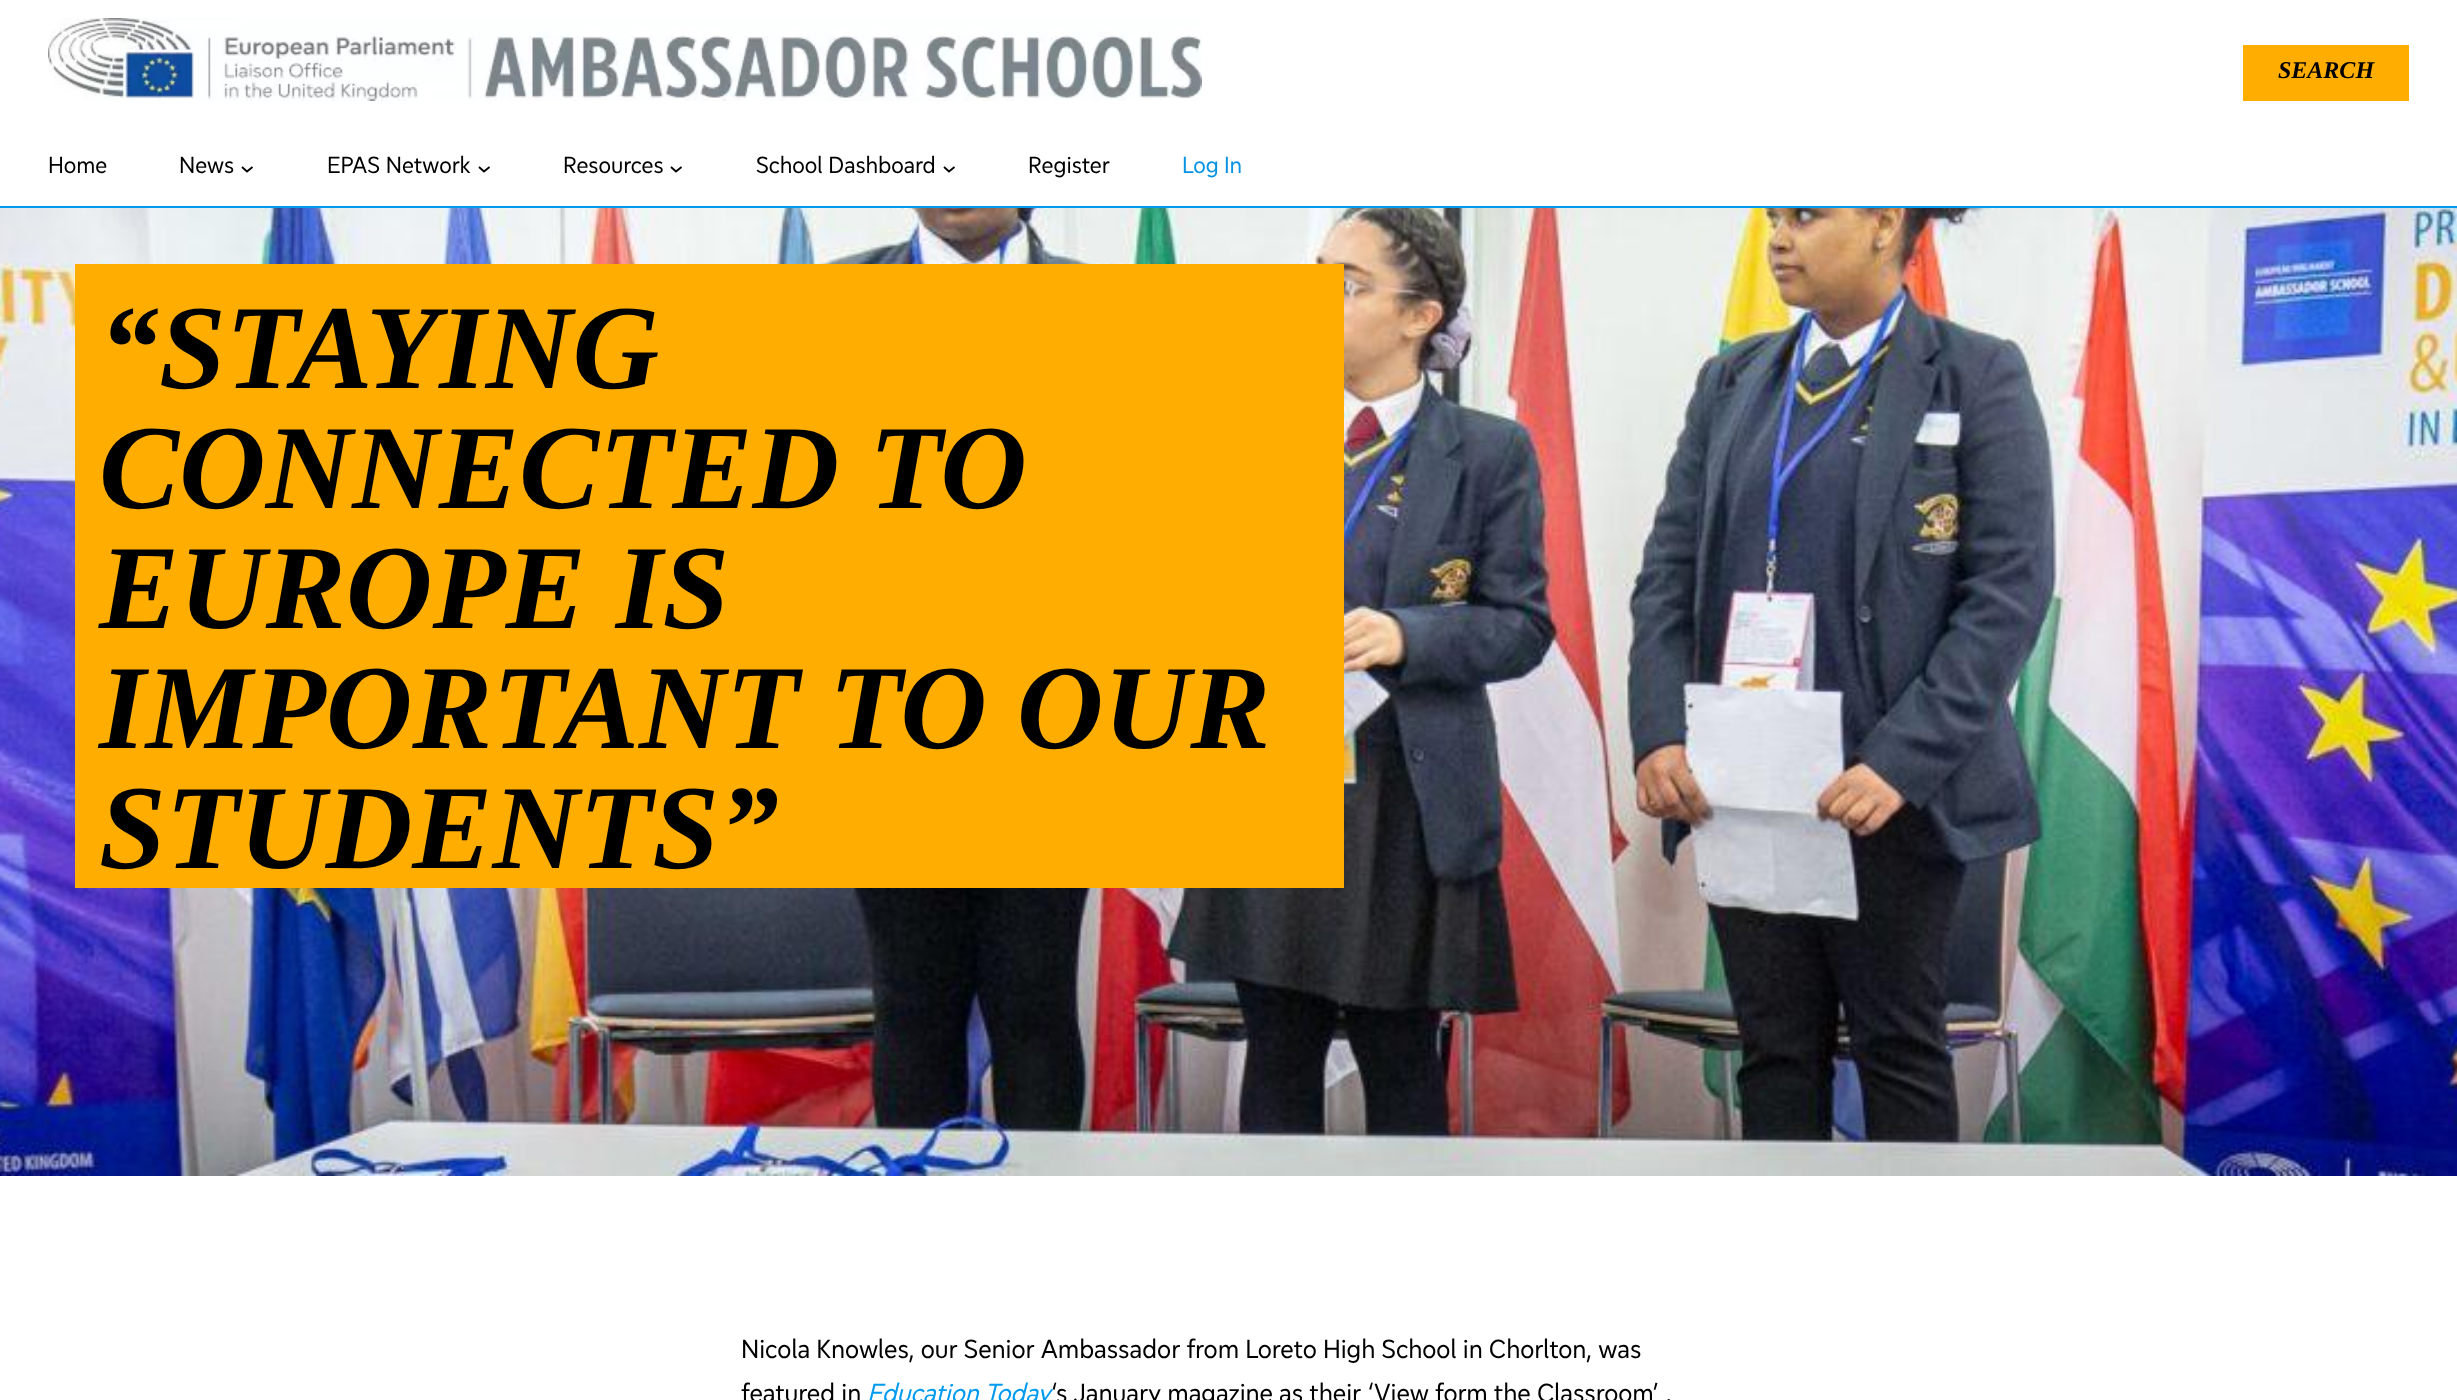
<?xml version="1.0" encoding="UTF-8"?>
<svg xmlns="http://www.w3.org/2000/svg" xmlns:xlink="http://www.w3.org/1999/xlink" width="2457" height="1400">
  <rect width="100%" height="100%" fill="#ffffff" />
  <rect y="206" width="2457" height="2" fill="#009bef" />
  <image x="48" y="18" width="1154" height="83" xlink:href="image1.png" />
  <rect x="2243" y="45" width="166" height="56" fill="#ffad00" />
  <path d="M 242 167 l 5 4.5 l 5.5 -4.5" fill="none" stroke="#000000" stroke-width="1.8" />
  <path d="M 479 167 l 5 4.5 l 5.5 -4.5" fill="none" stroke="#000000" stroke-width="1.8" />
  <path d="M 671 167 l 5 4.5 l 5.5 -4.5" fill="none" stroke="#000000" stroke-width="1.8" />
  <path d="M 944 167 l 5 4.5 l 5.5 -4.5" fill="none" stroke="#000000" stroke-width="1.8" />
  <image x="0" y="208" width="2457" height="968" xlink:href="image2.png" />
  <rect x="75" y="264" width="1269" height="624" fill="#ffad00" />
  <text x="2278" y="78" style="font-family: Liberation Serif; font-size: 24px; font-weight: bold; font-style: italic; fill: #000000">SEARCH</text>
  <text x="48" y="173" style="font-family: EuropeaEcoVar; font-size: 24px; fill: #000000">Home</text>
  <text x="179" y="173" style="font-family: EuropeaEcoVar; font-size: 24px; fill: #000000">News</text>
  <text x="327" y="173" style="font-family: EuropeaEcoVar; font-size: 24px; fill: #000000">EPAS Network</text>
  <text x="563" y="173" style="font-family: EuropeaEcoVar; font-size: 24px; fill: #000000">Resources</text>
  <text x="756" y="173" style="font-family: EuropeaEcoVar; font-size: 24px; fill: #000000">School Dashboard</text>
  <text x="1028" y="173" style="font-family: EuropeaEcoVar; font-size: 24px; fill: #000000">Register</text>
  <text x="1182" y="173" style="font-family: EuropeaEcoVar; font-size: 24px; fill: #0693e3">Log In</text>
  <text x="99" y="388" style="font-family: Liberation Serif; font-size: 120px; font-weight: bold; font-style: italic; fill: #000000">“STAYING</text>
  <text x="99" y="508" style="font-family: Liberation Serif; font-size: 120px; font-weight: bold; font-style: italic; fill: #000000">CONNECTED TO</text>
  <text x="99" y="628" style="font-family: Liberation Serif; font-size: 120px; font-weight: bold; font-style: italic; fill: #000000">EUROPE IS</text>
  <text x="99" y="748" style="font-family: Liberation Serif; font-size: 120px; font-weight: bold; font-style: italic; fill: #000000">IMPORTANT TO OUR</text>
  <text x="99" y="868" style="font-family: Liberation Serif; font-size: 120px; font-weight: bold; font-style: italic; fill: #000000">STUDENTS”</text>
  <text x="741" y="1358" style="font-family: EuropeaEcoVar; font-size: 27px; fill: #000000">Nicola Knowles, our Senior Ambassador from Loreto High School in Chorlton, was</text>
  <text x="741" y="1402" style="font-family: EuropeaEcoVar; font-size: 27px; fill: #000000">featured in</text>
  <text x="867" y="1402" style="font-family: EuropeaEcoVar; font-size: 27px; font-style: italic; fill: #009bef">Education Today</text>
  <text x="1051" y="1402" style="font-family: EuropeaEcoVar; font-size: 27px; fill: #000000">‘s January magazine as their ‘View form the Classroom’ .</text>
</svg>
